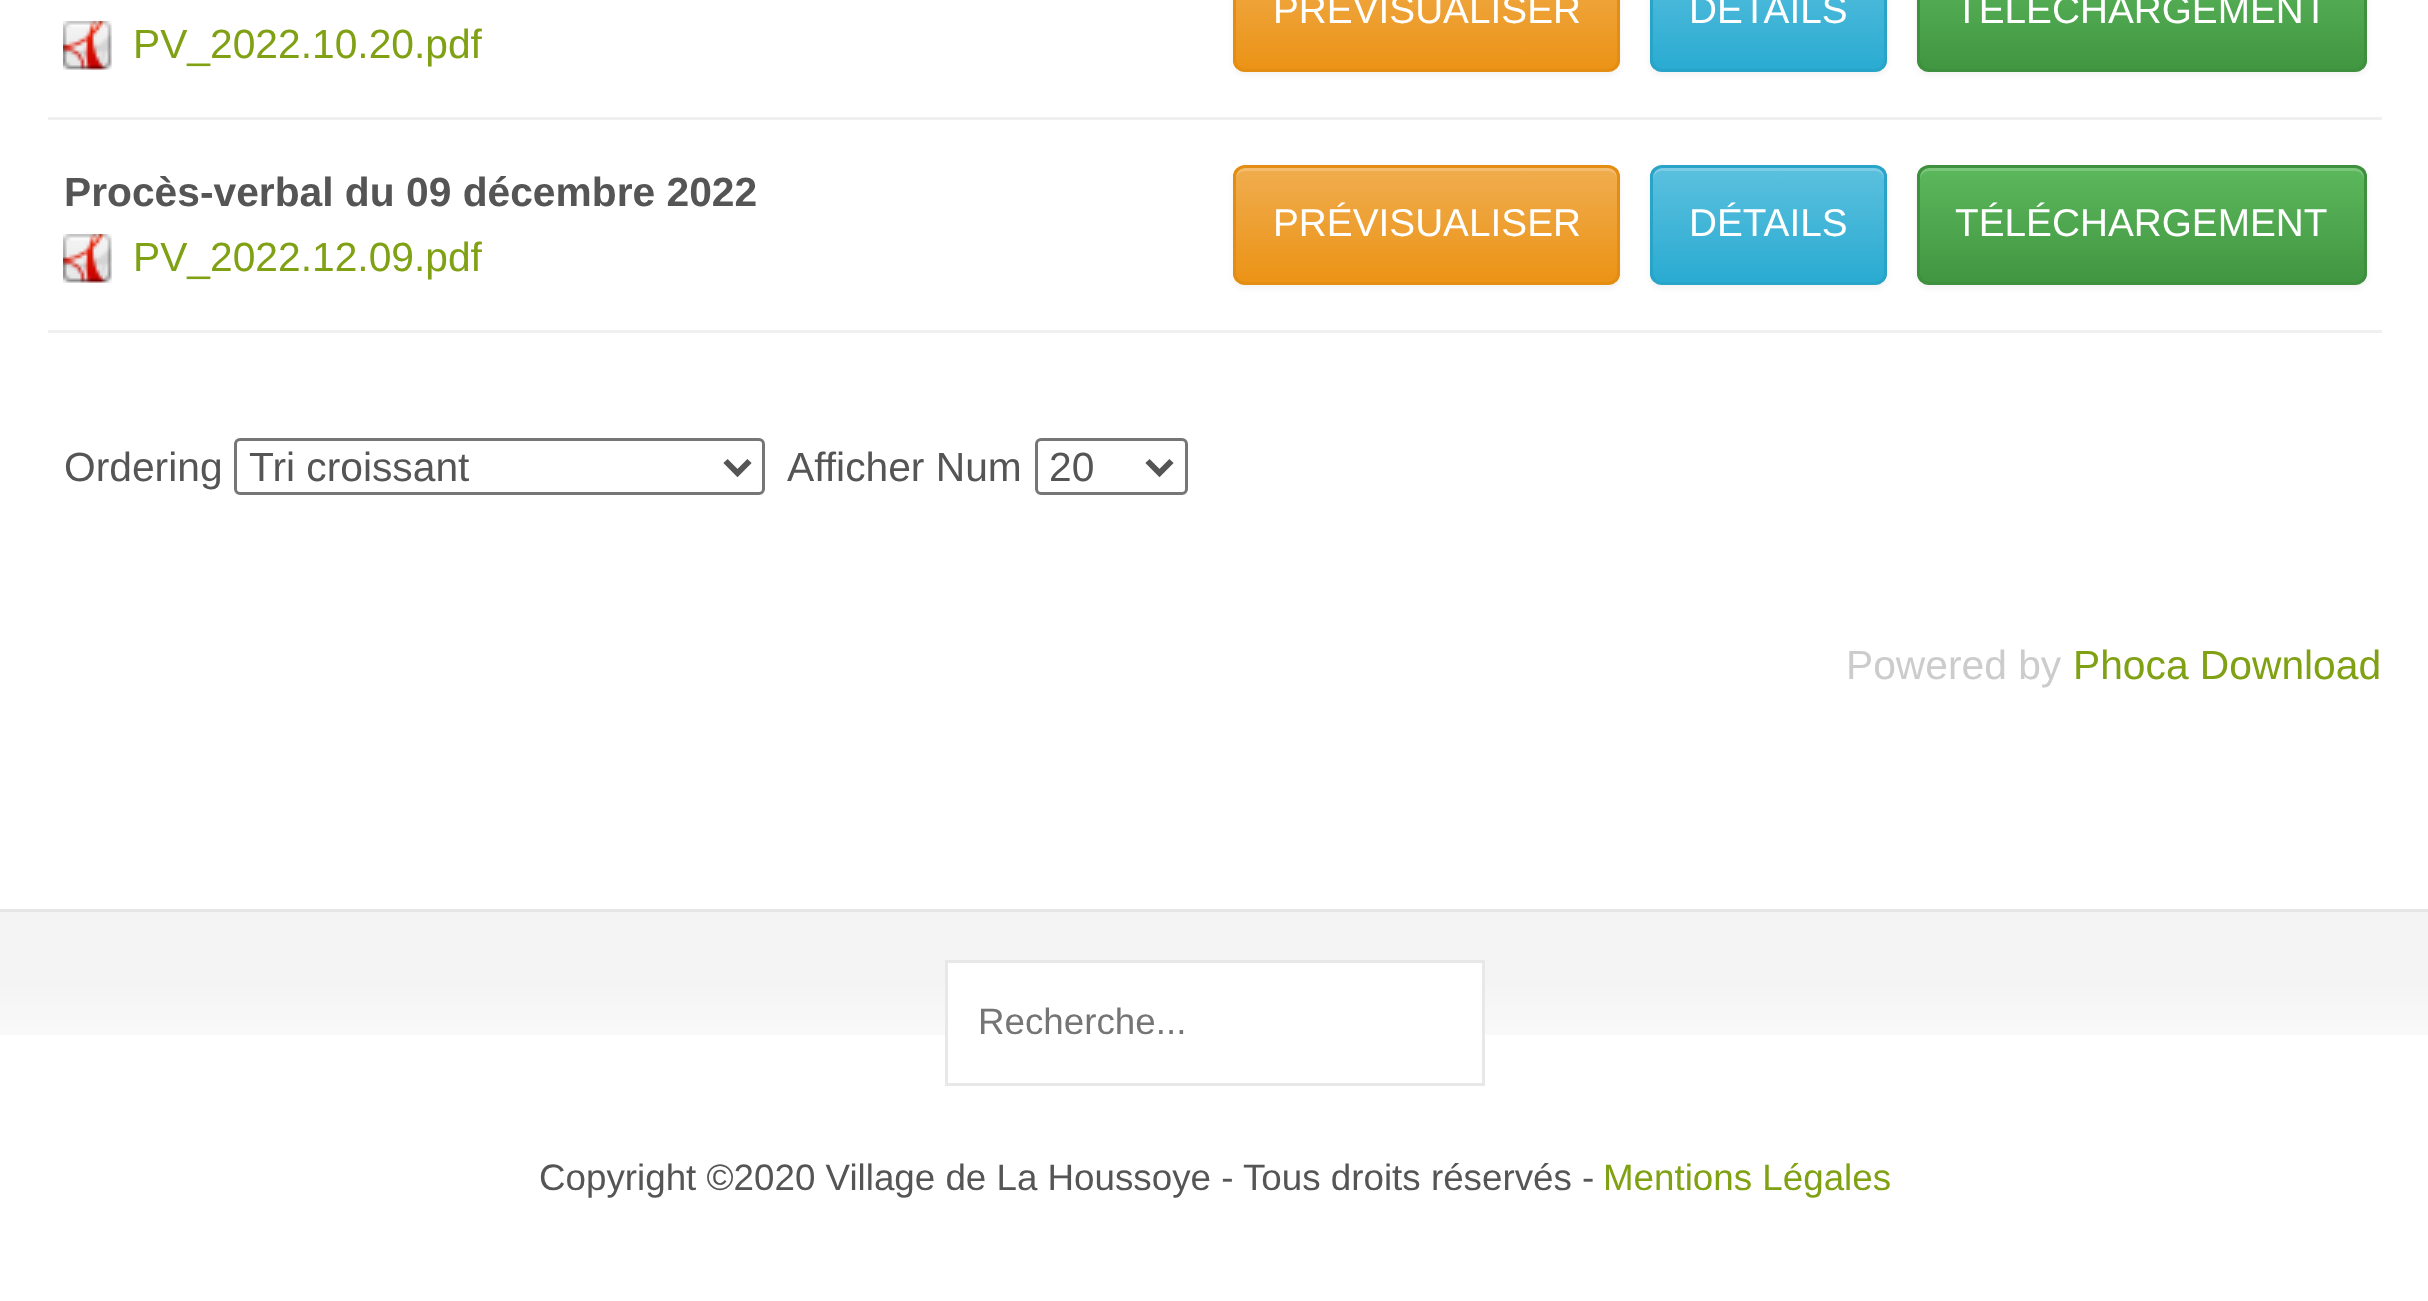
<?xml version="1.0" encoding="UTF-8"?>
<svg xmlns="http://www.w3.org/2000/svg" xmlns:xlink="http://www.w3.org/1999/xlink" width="2428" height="1301">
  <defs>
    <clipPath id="clip1"><rect x="1233" y="-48" width="387" height="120" rx="12" /></clipPath>
    <linearGradient id="g1" gradientUnits="userSpaceOnUse" x1="1427" y1="-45" x2="1427" y2="69"><stop offset="0" stop-color="#f0ad4e" /><stop offset="1" stop-color="#eb9316" /></linearGradient>
    <clipPath id="clip2"><rect x="1650" y="-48" width="237" height="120" rx="12" /></clipPath>
    <linearGradient id="g2" gradientUnits="userSpaceOnUse" x1="1769" y1="-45" x2="1769" y2="69"><stop offset="0" stop-color="#5bc0de" /><stop offset="1" stop-color="#2aabd2" /></linearGradient>
    <clipPath id="clip3"><rect x="1917" y="-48" width="450" height="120" rx="12" /></clipPath>
    <linearGradient id="g3" gradientUnits="userSpaceOnUse" x1="2142" y1="-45" x2="2142" y2="69"><stop offset="0" stop-color="#5cb85c" /><stop offset="1" stop-color="#419641" /></linearGradient>
    <clipPath id="clip4"><rect x="1233" y="165" width="387" height="120" rx="12" /></clipPath>
    <linearGradient id="g4" gradientUnits="userSpaceOnUse" x1="1427" y1="168" x2="1427" y2="282"><stop offset="0" stop-color="#f0ad4e" /><stop offset="1" stop-color="#eb9316" /></linearGradient>
    <clipPath id="clip5"><rect x="1650" y="165" width="237" height="120" rx="12" /></clipPath>
    <linearGradient id="g5" gradientUnits="userSpaceOnUse" x1="1769" y1="168" x2="1769" y2="282"><stop offset="0" stop-color="#5bc0de" /><stop offset="1" stop-color="#2aabd2" /></linearGradient>
    <clipPath id="clip6"><rect x="1917" y="165" width="450" height="120" rx="12" /></clipPath>
    <linearGradient id="g6" gradientUnits="userSpaceOnUse" x1="2142" y1="168" x2="2142" y2="282"><stop offset="0" stop-color="#5cb85c" /><stop offset="1" stop-color="#419641" /></linearGradient>
  </defs>
  <rect width="100%" height="100%" fill="#ffffff" />
  <rect x="48" y="117" width="2334" height="3" fill="#f0f0f0" />
  <rect x="1233" y="-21" width="387" height="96" rx="12" fill="#000000" fill-opacity="0.05" filter="blur(3px)" />
  <g clip-path="url(#clip1)">
    <rect x="1233" width="387" height="69" fill="url(#g1)" />
  </g>
  <rect x="1234.5" y="-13.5" width="384" height="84" rx="10.5" fill="none" stroke="#e38d13" stroke-width="3" />
  <rect x="1650" y="-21" width="237" height="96" rx="12" fill="#000000" fill-opacity="0.05" filter="blur(3px)" />
  <g clip-path="url(#clip2)">
    <rect x="1650" width="237" height="69" fill="url(#g2)" />
  </g>
  <rect x="1651.5" y="-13.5" width="234" height="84" rx="10.5" fill="none" stroke="#28a4c9" stroke-width="3" />
  <rect x="1917" y="-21" width="450" height="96" rx="12" fill="#000000" fill-opacity="0.05" filter="blur(3px)" />
  <g clip-path="url(#clip3)">
    <rect x="1917" width="450" height="69" fill="url(#g3)" />
  </g>
  <rect x="1918.5" y="-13.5" width="447" height="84" rx="10.5" fill="none" stroke="#3e8f3e" stroke-width="3" />
  <image x="63" y="21" width="49" height="49" xlink:href="image1.png" />
  <rect x="48" y="330" width="2334" height="3" fill="#f0f0f0" />
  <image x="63" y="234" width="49" height="49" xlink:href="image1.png" />
  <rect x="1233" y="168" width="387" height="120" rx="12" fill="#000000" fill-opacity="0.05" filter="blur(3px)" />
  <g clip-path="url(#clip4)">
    <rect x="1233" y="168" width="387" height="114" fill="url(#g4)" />
  </g>
  <path d="M 1245 171 h 363 c 5 0 9 4 9 9 c 0 -5 -1 -11 -7 -12 h -365 c -7 0 -9 6 -9 12 c 0 -5 4 -9 9 -9 z" fill="#ffffff" fill-opacity="0.2" />
  <rect x="1234.5" y="166.5" width="384" height="117" rx="10.5" fill="none" stroke="#e38d13" stroke-width="3" />
  <rect x="1650" y="168" width="237" height="120" rx="12" fill="#000000" fill-opacity="0.05" filter="blur(3px)" />
  <g clip-path="url(#clip5)">
    <rect x="1650" y="168" width="237" height="114" fill="url(#g5)" />
  </g>
  <path d="M 1662 171 h 213 c 5 0 9 4 9 9 v -3 c 0 -5 -4 -9 -9 -9 h -213 c -5 0 -9 4 -9 9 v 3 c 0 -5 4 -9 9 -9 z" fill="#ffffff" fill-opacity="0.2" />
  <rect x="1651.5" y="166.5" width="234" height="117" rx="10.5" fill="none" stroke="#28a4c9" stroke-width="3" />
  <rect x="1917" y="168" width="450" height="120" rx="12" fill="#000000" fill-opacity="0.05" filter="blur(3px)" />
  <g clip-path="url(#clip6)">
    <rect x="1917" y="168" width="450" height="114" fill="url(#g6)" />
  </g>
  <path d="M 1929 171 h 426 c 5 0 9 4 9 9 v -3 c 0 -5 -4 -9 -9 -9 h -426 c -5 0 -9 4 -9 9 v 3 c 0 -5 4 -9 9 -9 z" fill="#ffffff" fill-opacity="0.2" />
  <rect x="1918.5" y="166.5" width="447" height="117" rx="10.5" fill="none" stroke="#3e8f3e" stroke-width="3" />
  <rect x="235.5" y="439.5" width="528" height="54" rx="4.5" fill="none" stroke="#767676" stroke-width="3" />
  <path d="M 725.5 461 l 12 12 l 12 -12" fill="none" stroke="#555555" stroke-width="6" />
  <rect x="1036.5" y="439.5" width="150" height="54" rx="4.5" fill="none" stroke="#767676" stroke-width="3" />
  <path d="M 1147.5 461 l 12 12 l 12 -12" fill="none" stroke="#555555" stroke-width="6" />
  <image x="0" y="912" width="2428" height="123" xlink:href="image2.png" />
  <rect y="909" width="2428" height="3" fill="#e6e6e6" />
  <rect x="948" y="963" width="534" height="72" fill="#ffffff" />
  <rect x="946.5" y="961.5" width="537" height="123" fill="none" stroke="#e8e8e8" stroke-width="3" />
  <text x="1273" y="23" style="font-family: Liberation Sans; font-size: 38.75px; fill: #ffffff">PRÉVISUALISER</text>
  <text x="1689" y="23" style="font-family: Liberation Sans; font-size: 38.75px; fill: #ffffff">DÉTAILS</text>
  <text x="1955" y="23" style="font-family: Liberation Sans; font-size: 38.75px; fill: #ffffff">TÉLÉCHARGEMENT</text>
  <text x="133" y="58" style="font-family: Liberation Sans; font-size: 40.75px; fill: #80a114">PV_2022.10.20.pdf</text>
  <text x="64" y="206" style="font-family: Liberation Sans; font-size: 40.75px; font-weight: bold; fill: #555555">Procès-verbal du 09 décembre 2022</text>
  <text x="133" y="271" style="font-family: Liberation Sans; font-size: 40.75px; fill: #80a114">PV_2022.12.09.pdf</text>
  <text x="1273" y="236" style="font-family: Liberation Sans; font-size: 38.75px; fill: #ffffff">PRÉVISUALISER</text>
  <text x="1689" y="236" style="font-family: Liberation Sans; font-size: 38.75px; fill: #ffffff">DÉTAILS</text>
  <text x="1955" y="236" style="font-family: Liberation Sans; font-size: 38.75px; fill: #ffffff">TÉLÉCHARGEMENT</text>
  <text x="64" y="481" style="font-family: Liberation Sans; font-size: 40.75px; fill: #555555">Ordering</text>
  <text x="249" y="481" style="font-family: Liberation Sans; font-size: 40.75px; fill: #555555">Tri croissant</text>
  <text x="787" y="481" style="font-family: Liberation Sans; font-size: 40.75px; fill: #555555">Afficher Num</text>
  <text x="1049" y="481" style="font-family: Liberation Sans; font-size: 40.75px; fill: #555555">20</text>
  <text x="1846" y="679" style="font-family: Liberation Sans; font-size: 40.75px; fill: #cccccc">Powered by</text>
  <text x="2073" y="679" style="font-family: Liberation Sans; font-size: 40.75px; fill: #80a114">Phoca Download</text>
  <text x="978" y="1034" style="font-family: Liberation Sans; font-size: 36.75px; fill: #757575">Recherche...</text>
  <text x="539" y="1190" style="font-family: Liberation Sans; font-size: 36.75px; fill: #555555">Copyright ©2020 Village de La Houssoye - Tous droits réservés -</text>
  <text x="1603" y="1190" style="font-family: Liberation Sans; font-size: 36.75px; fill: #80a114">Mentions Légales</text>
</svg>
